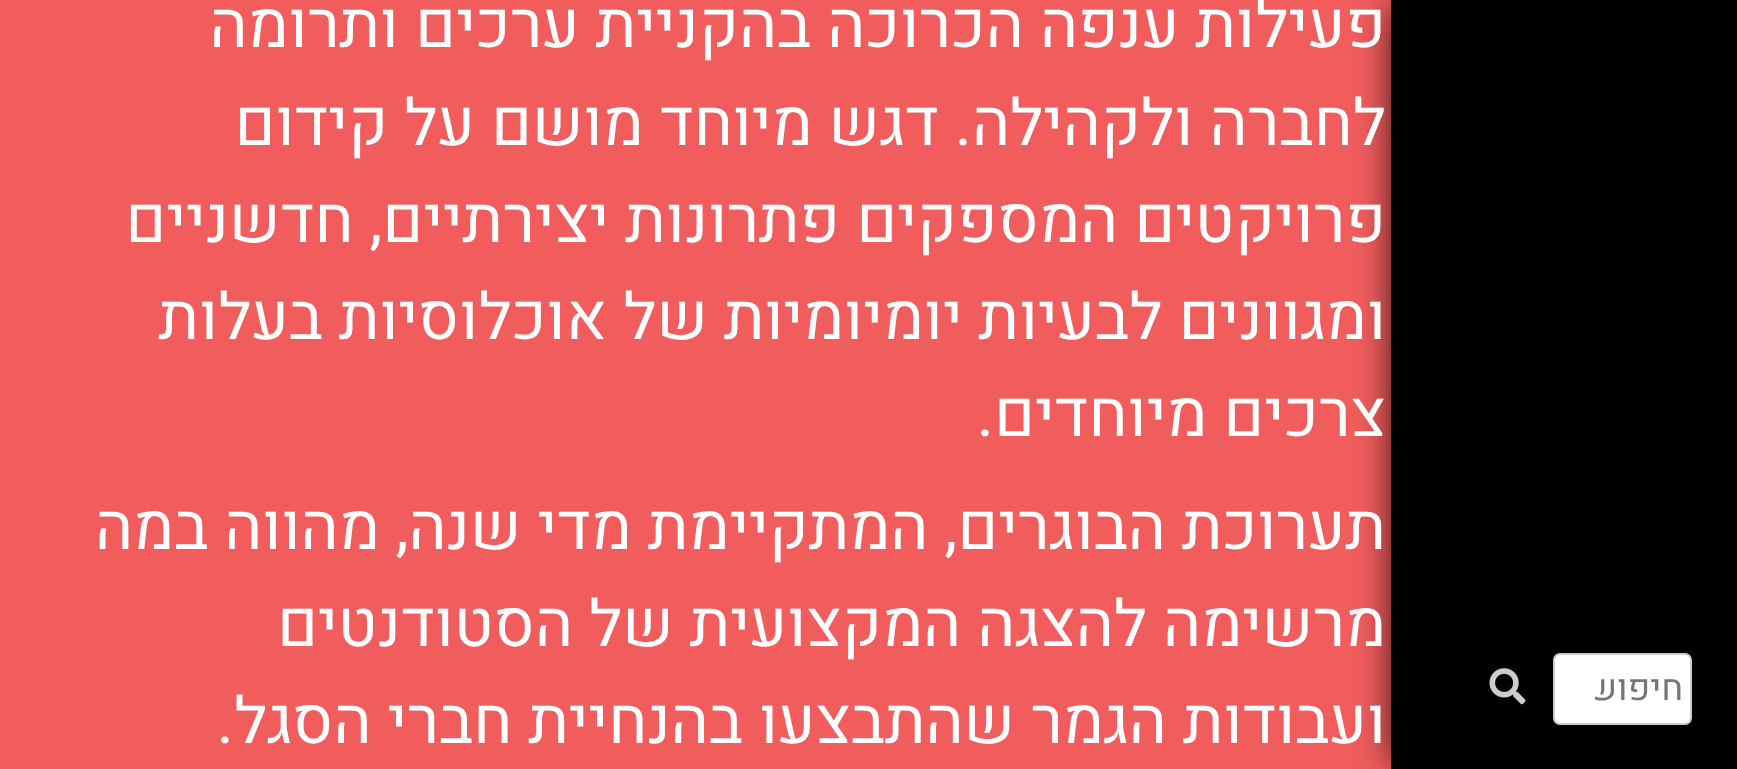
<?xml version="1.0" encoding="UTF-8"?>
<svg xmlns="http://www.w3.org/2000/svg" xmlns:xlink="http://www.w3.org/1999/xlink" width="1737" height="769">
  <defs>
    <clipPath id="clip1"><rect x="1595" y="662" width="88" height="54" /></clipPath>
  </defs>
  <rect width="100%" height="100%" fill="#f15d5d" />
  <rect x="1397" y="7" width="333" height="756" fill="#000000" filter="blur(19px)" />
  <rect x="1391" width="346" height="769" fill="#000000" />
  <rect x="1554" y="654" width="137" height="70" rx="6" fill="#ffffff" stroke="#cccccc" stroke-width="2" />
  <image x="1489" y="668" width="37" height="37" xlink:href="image1.png" />
  <g clip-path="url(#clip1)">
    <text x="1683" y="700" style="font-family: Heebo; font-size: 36px; direction: rtl; fill: #757575">חיפוש</text>
  </g>
  <text x="1386" y="47" style="font-family: Heebo; font-size: 64.75px; direction: rtl; fill: #ffffff">פעילות ענפה הכרוכה בהקניית ערכים ותרומה</text>
  <text x="1386" y="145" style="font-family: Heebo; font-size: 64.75px; direction: rtl; fill: #ffffff">לחברה ולקהילה. דגש מיוחד מושם על קידום</text>
  <text x="1386" y="242" style="font-family: Heebo; font-size: 64.75px; direction: rtl; fill: #ffffff">פרויקטים המספקים פתרונות יצירתיים, חדשניים</text>
  <text x="1386" y="339" style="font-family: Heebo; font-size: 64.75px; direction: rtl; fill: #ffffff">ומגוונים לבעיות יומיומיות של אוכלוסיות בעלות</text>
  <text x="1386" y="436" style="font-family: Heebo; font-size: 64.75px; direction: rtl; fill: #ffffff">צרכים מיוחדים.</text>
  <text x="1386" y="549" style="font-family: Heebo; font-size: 64.75px; direction: rtl; fill: #ffffff">תערוכת הבוגרים, המתקיימת מדי שנה, מהווה במה</text>
  <text x="1386" y="646" style="font-family: Heebo; font-size: 64.75px; direction: rtl; fill: #ffffff">מרשימה להצגה המקצועית של הסטודנטים</text>
  <text x="1386" y="743" style="font-family: Heebo; font-size: 64.75px; direction: rtl; fill: #ffffff">ועבודות הגמר שהתבצעו בהנחיית חברי הסגל.</text>
</svg>
